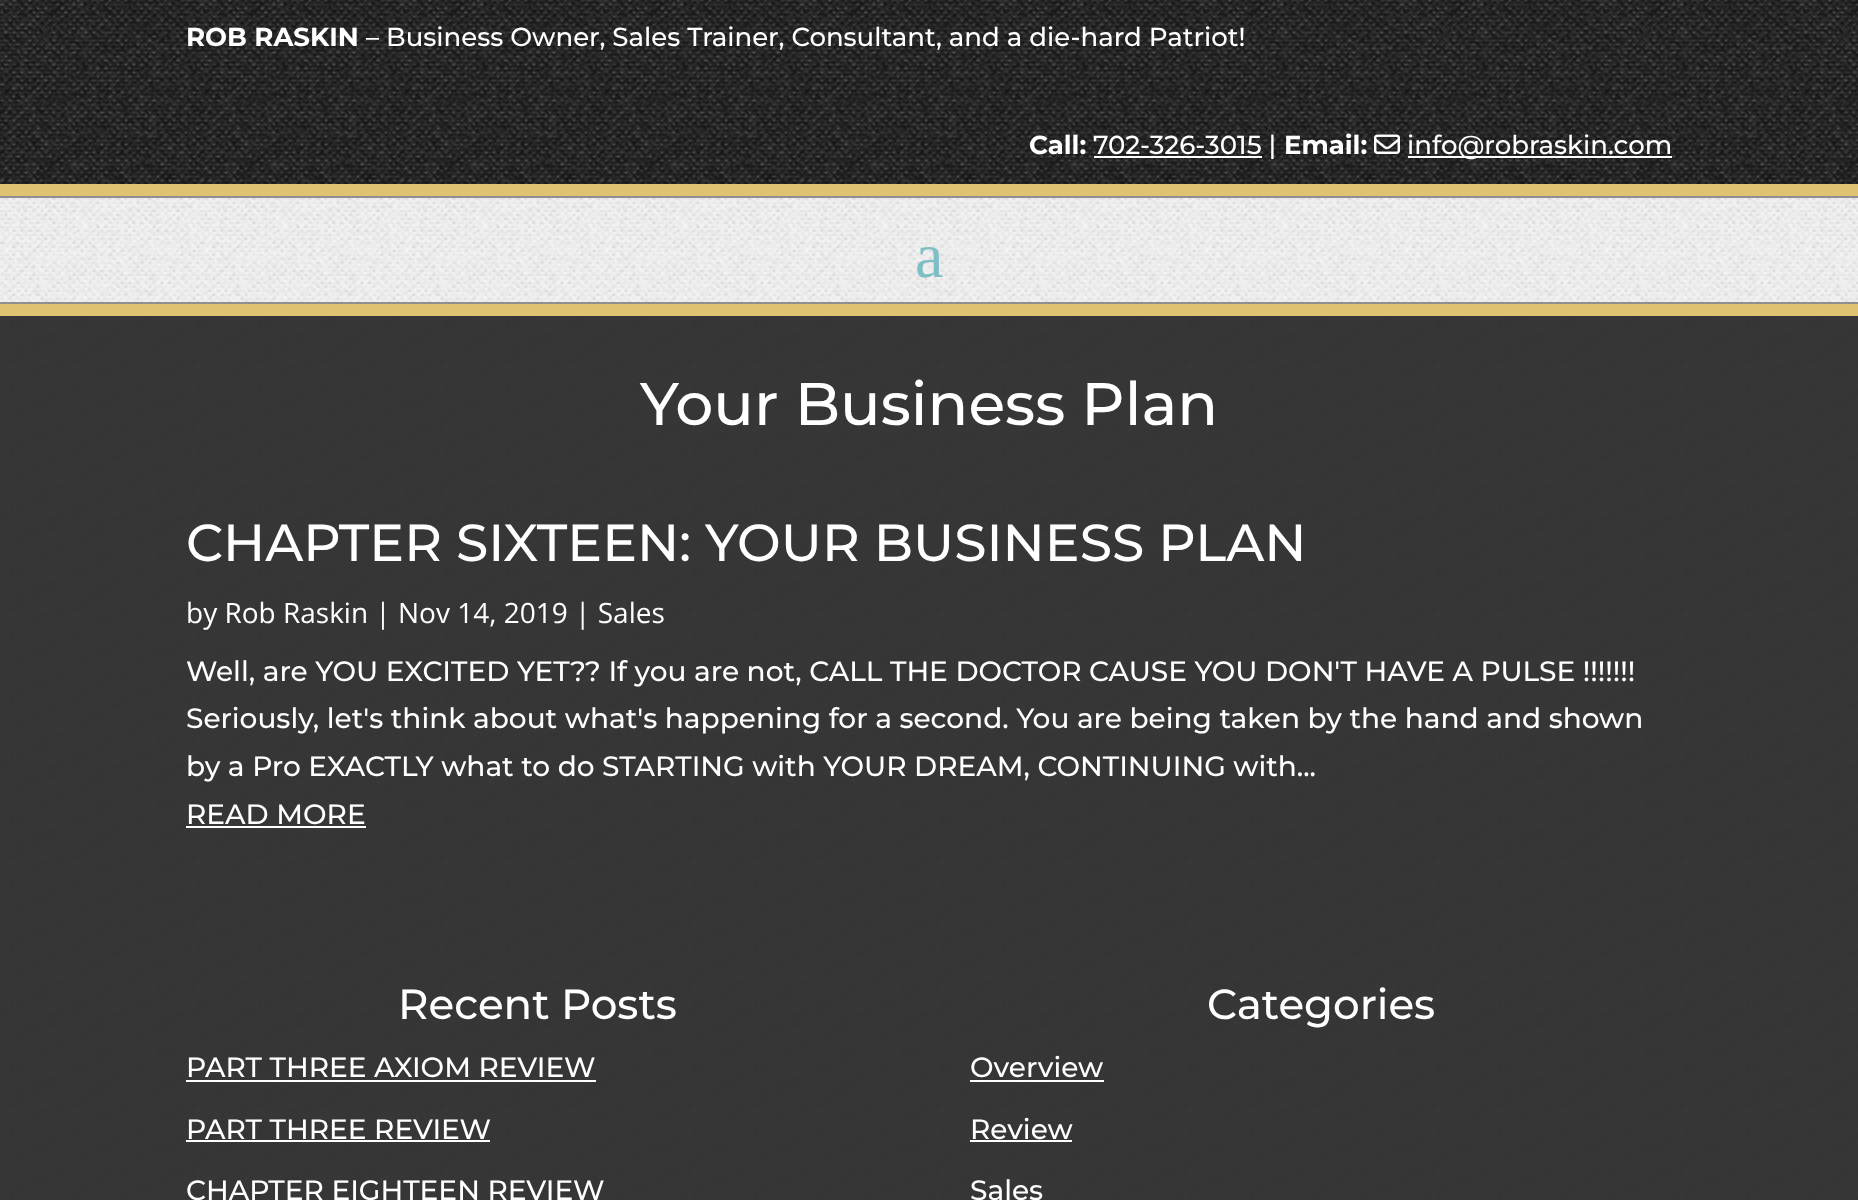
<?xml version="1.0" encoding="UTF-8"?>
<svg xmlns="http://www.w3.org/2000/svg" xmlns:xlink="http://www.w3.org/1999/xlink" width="1858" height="1200">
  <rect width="100%" height="100%" fill="#ffffff" />
  <rect width="1858" height="184" fill="#0e0e0e" />
  <image x="0" y="0" width="1858" height="184" xlink:href="image1.png" />
  <rect x="1094" y="156" width="168" height="2" fill="#ffffff" />
  <image x="1374" y="134" width="26" height="20" xlink:href="image2.png" />
  <rect x="1408" y="156" width="264" height="2" fill="#ffffff" />
  <image x="0" y="198" width="1858" height="104" xlink:href="image3.png" />
  <rect y="184" width="1858" height="12" fill="#e0c273" />
  <rect y="304" width="1858" height="12" fill="#e0c273" />
  <rect y="196" width="1858" height="2" fill="#8f8f8f" />
  <rect y="302" width="1858" height="2" fill="#8f8f8f" />
  <rect y="316" width="1858" height="884" fill="#3c3c3c" />
  <image x="0" y="316" width="1858" height="884" xlink:href="image4.png" />
  <rect x="186" y="826" width="180" height="2" fill="#ffffff" />
  <rect x="186" y="1080" width="410" height="2" fill="#ffffff" />
  <rect x="186" y="1140" width="304" height="2" fill="#ffffff" />
  <rect x="970" y="1080" width="134" height="2" fill="#ffffff" />
  <rect x="970" y="1140" width="102" height="2" fill="#ffffff" />
  <text x="186" y="46" style="font-family: Montserrat; font-size: 26px; font-weight: bold; fill: #ffffff">ROB RASKIN</text>
  <text x="366" y="46" style="font-family: Montserrat; font-size: 26px; font-weight: 500; fill: #ffffff">– Business Owner, Sales Trainer, Consultant, and a die-hard Patriot!</text>
  <text x="1029" y="154" style="font-family: Montserrat; font-size: 26px; font-weight: bold; fill: #ffffff">Call:</text>
  <text x="1093" y="154" style="font-family: Montserrat; font-size: 26px; font-weight: 500; fill: #ffffff">702-326-3015 |</text>
  <text x="1284" y="154" style="font-family: Montserrat; font-size: 26px; font-weight: bold; fill: #ffffff">Email:</text>
  <text x="1407" y="154" style="font-family: Montserrat; font-size: 26px; font-weight: 500; fill: #ffffff">info@robraskin.com</text>
  <text x="915" y="277" style="font-family: Liberation Serif; font-size: 64px; fill: #7ebec5">a</text>
  <text x="640" y="425" style="font-family: Montserrat; font-size: 60px; font-weight: 500; fill: #ffffff">Your Business Plan</text>
  <text x="186" y="561" style="font-family: Montserrat; font-size: 52px; font-weight: 500; fill: #ffffff">CHAPTER SIXTEEN: YOUR BUSINESS PLAN</text>
  <text x="186" y="623" style="font-family: Open Sans; font-size: 28px; fill: #ffffff">by Rob Raskin | Nov 14, 2019 | Sales</text>
  <text x="186" y="681" style="font-family: Montserrat; font-size: 28px; font-weight: 500; fill: #ffffff">Well, are YOU EXCITED YET?? If you are not, CALL THE DOCTOR CAUSE YOU DON'T HAVE A PULSE !!!!!!!</text>
  <text x="186" y="728" style="font-family: Montserrat; font-size: 28px; font-weight: 500; fill: #ffffff">Seriously, let's think about what's happening for a second. You are being taken by the hand and shown</text>
  <text x="186" y="776" style="font-family: Montserrat; font-size: 28px; font-weight: 500; fill: #ffffff">by a Pro EXACTLY what to do STARTING with YOUR DREAM, CONTINUING with...</text>
  <text x="186" y="824" style="font-family: Montserrat; font-size: 28px; font-weight: 500; fill: #ffffff">READ MORE</text>
  <text x="398" y="1019" style="font-family: Montserrat; font-size: 42px; font-weight: 500; fill: #ffffff">Recent Posts</text>
  <text x="186" y="1077" style="font-family: Montserrat; font-size: 28px; font-weight: 500; fill: #ffffff">PART THREE AXIOM REVIEW</text>
  <text x="186" y="1139" style="font-family: Montserrat; font-size: 28px; font-weight: 500; fill: #ffffff">PART THREE REVIEW</text>
  <text x="186" y="1200" style="font-family: Montserrat; font-size: 28px; font-weight: 500; fill: #ffffff">CHAPTER EIGHTEEN REVIEW</text>
  <text x="1207" y="1019" style="font-family: Montserrat; font-size: 42px; font-weight: 500; fill: #ffffff">Categories</text>
  <text x="970" y="1077" style="font-family: Montserrat; font-size: 28px; font-weight: 500; fill: #ffffff">Overview</text>
  <text x="970" y="1139" style="font-family: Montserrat; font-size: 28px; font-weight: 500; fill: #ffffff">Review</text>
  <text x="970" y="1200" style="font-family: Montserrat; font-size: 28px; font-weight: 500; fill: #ffffff">Sales</text>
</svg>
